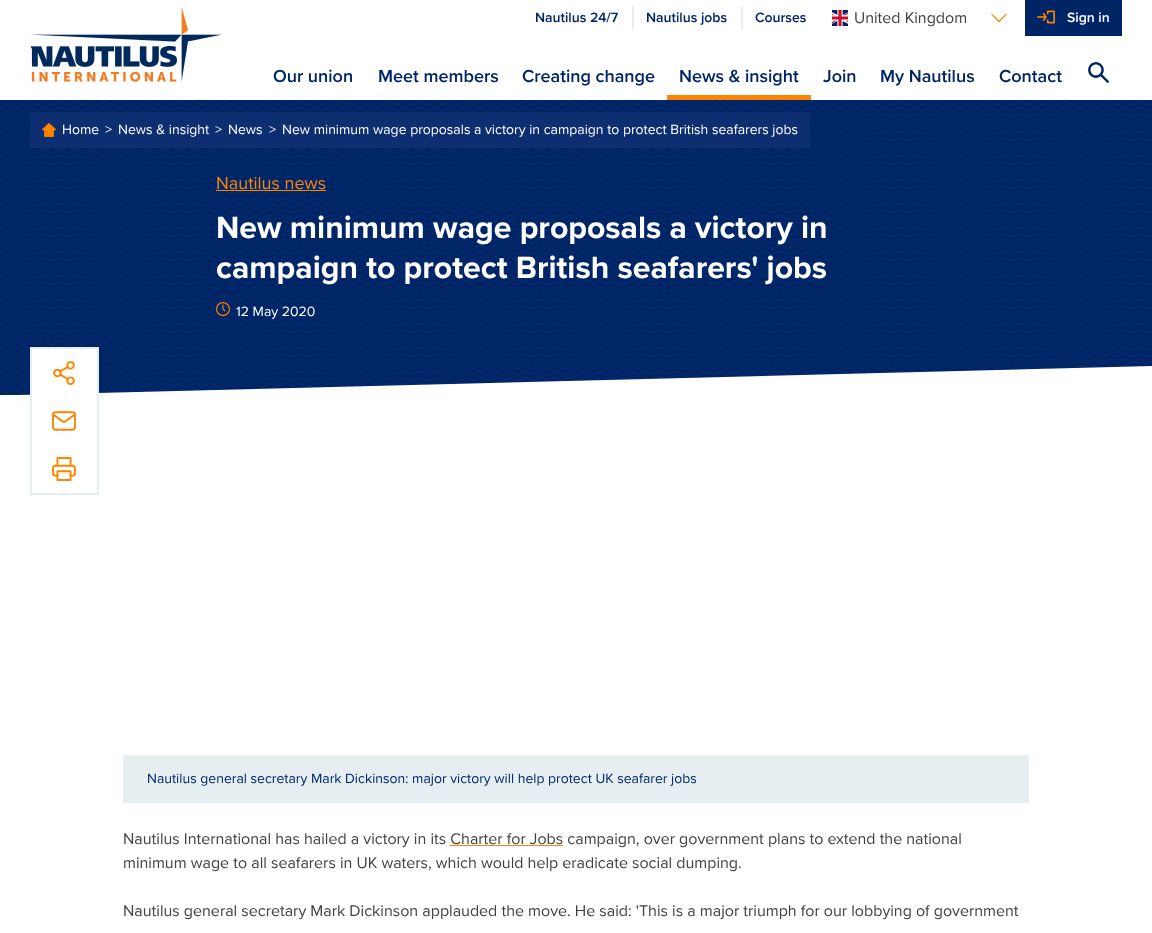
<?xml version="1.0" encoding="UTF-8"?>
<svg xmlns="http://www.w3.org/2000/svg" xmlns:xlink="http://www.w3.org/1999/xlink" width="1152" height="933">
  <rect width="100%" height="100%" fill="#ffffff" />
  <image x="30" y="7" width="192" height="75" xlink:href="image1.png" />
  <rect x="632" y="6" width="2" height="24" fill="#e6eef2" />
  <rect x="741" y="6" width="2" height="24" fill="#e6eef2" />
  <image x="832" y="10" width="16" height="16" xlink:href="image2.png" />
  <image x="991" y="13" width="16" height="9" xlink:href="image3.png" />
  <rect x="1025" width="97" height="36" fill="#002567" />
  <image x="1037" y="10" width="18" height="14" xlink:href="image4.png" />
  <rect x="667" y="95" width="144" height="5" fill="#ff8500" />
  <image x="1088" y="62" width="21" height="21" xlink:href="image5.png" />
  <path d="M 0 100 v 295 h 18 l 1134 -29 v -266 z" fill="#002567" />
  <image x="0" y="101" width="1152" height="292" xlink:href="image6.png" />
  <rect x="30" y="112" width="780" height="36" fill="#0d2f71" />
  <image x="42" y="123" width="14" height="14" xlink:href="image7.png" />
  <rect x="216" y="190" width="110" height="1" fill="#ff8500" />
  <image x="216" y="302" width="14" height="14" xlink:href="image8.png" />
  <rect x="32" y="349" width="65" height="46" fill="#ffffff" />
  <rect x="31" y="348" width="67" height="146" fill="none" stroke="#e6eef2" stroke-width="2" />
  <image x="53" y="361" width="22" height="24" xlink:href="image9.png" />
  <image x="52" y="411" width="24" height="20" xlink:href="image10.png" />
  <image x="52" y="457" width="24" height="24" xlink:href="image11.png" />
  <rect x="123" y="755" width="906" height="48" fill="#e6eef2" />
  <text x="535" y="22" style="font-family: Proxima Nova; font-size: 14px; font-weight: 600; fill: #002567">Nautilus 24/7</text>
  <text x="646" y="22" style="font-family: Proxima Nova; font-size: 14px; font-weight: 600; fill: #002567">Nautilus jobs</text>
  <text x="755" y="22" style="font-family: Proxima Nova; font-size: 14px; font-weight: 600; fill: #002567">Courses</text>
  <text x="854" y="23" style="font-family: Proxima Nova; font-size: 16px; fill: #404040">United Kingdom</text>
  <text x="1067" y="22" style="font-family: Proxima Nova; font-size: 14px; font-weight: 600; fill: #ffffff">Sign in</text>
  <text x="273" y="82" style="font-family: Proxima Nova; font-size: 18px; font-weight: 600; fill: #002567">Our union</text>
  <text x="378" y="82" style="font-family: Proxima Nova; font-size: 18px; font-weight: 600; fill: #002567">Meet members</text>
  <text x="522" y="82" style="font-family: Proxima Nova; font-size: 18px; font-weight: 600; fill: #002567">Creating change</text>
  <text x="679" y="82" style="font-family: Proxima Nova; font-size: 18px; font-weight: 600; fill: #002567">News &amp; insight</text>
  <text x="823" y="82" style="font-family: Proxima Nova; font-size: 18px; font-weight: 600; fill: #002567">Join</text>
  <text x="880" y="82" style="font-family: Proxima Nova; font-size: 18px; font-weight: 600; fill: #002567">My Nautilus</text>
  <text x="999" y="82" style="font-family: Proxima Nova; font-size: 18px; font-weight: 600; fill: #002567">Contact</text>
  <text x="62" y="134" style="font-family: Proxima Nova; font-size: 14px; fill: #ffffff">Home</text>
  <text x="105" y="134" style="font-family: Proxima Nova; font-size: 14px; fill: #ffffff">&gt;</text>
  <text x="118" y="134" style="font-family: Proxima Nova; font-size: 14px; fill: #ffffff">News &amp; insight</text>
  <text x="215" y="134" style="font-family: Proxima Nova; font-size: 14px; fill: #ffffff">&gt;</text>
  <text x="228" y="134" style="font-family: Proxima Nova; font-size: 14px; fill: #ffffff">News</text>
  <text x="269" y="134" style="font-family: Proxima Nova; font-size: 14px; fill: #ffffff">&gt;</text>
  <text x="282" y="134" style="font-family: Proxima Nova; font-size: 14px; fill: #ffffff">New minimum wage proposals a victory in campaign to protect British seafarers jobs</text>
  <text x="216" y="189" style="font-family: Proxima Nova; font-size: 18px; fill: #ff8500">Nautilus news</text>
  <text x="216" y="238" style="font-family: Proxima Nova; font-size: 32px; font-weight: bold; fill: #ffffff">New minimum wage proposals a victory in</text>
  <text x="216" y="278" style="font-family: Proxima Nova; font-size: 32px; font-weight: bold; fill: #ffffff">campaign to protect British seafarers' jobs</text>
  <text x="236" y="316" style="font-family: Proxima Nova; font-size: 14px; fill: #ffffff">12 May 2020</text>
  <text x="147" y="783" style="font-family: Proxima Nova; font-size: 14px; fill: #002567">Nautilus general secretary Mark Dickinson: major victory will help protect UK seafarer jobs</text>
  <text x="123" y="844" style="font-family: Proxima Nova; font-size: 16px; fill: #404040">Nautilus International has hailed a victory in its Charter for Jobs campaign, over government plans to extend the national</text>
  <rect x="450" y="845" width="113" height="1" fill="#ff8500" />
  <text x="123" y="868" style="font-family: Proxima Nova; font-size: 16px; fill: #404040">minimum wage to all seafarers in UK waters, which would help eradicate social dumping.</text>
  <text x="123" y="916" style="font-family: Proxima Nova; font-size: 16px; fill: #404040">Nautilus general secretary Mark Dickinson applauded the move. He said: 'This is a major triumph for our lobbying of government</text>
</svg>
